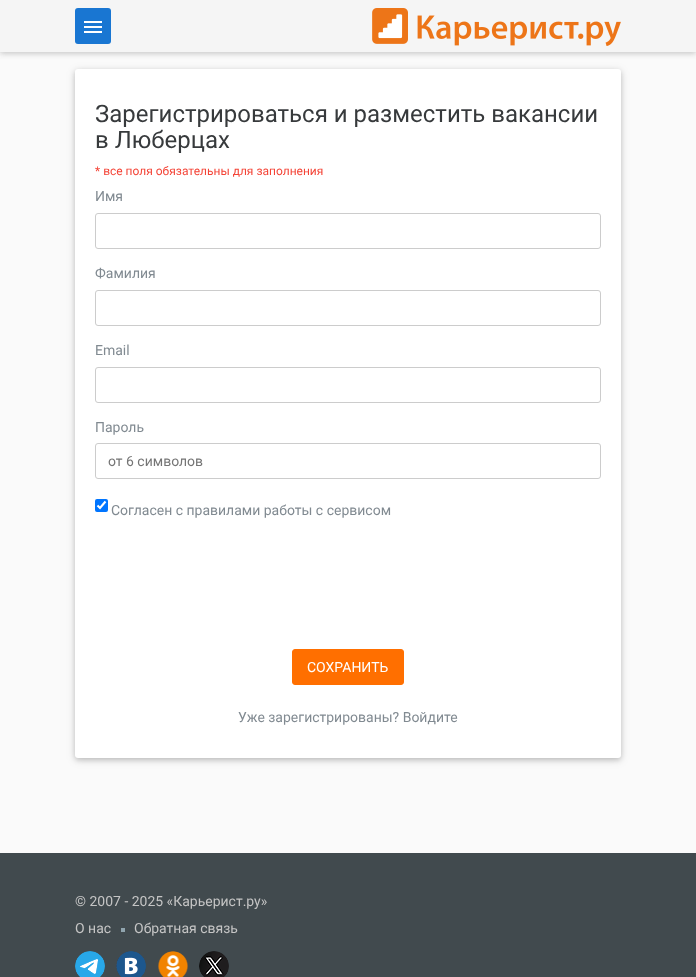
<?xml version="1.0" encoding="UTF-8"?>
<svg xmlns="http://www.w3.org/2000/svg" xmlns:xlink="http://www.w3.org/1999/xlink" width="696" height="977">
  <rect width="100%" height="100%" fill="#fafafa" />
  <rect y="1" width="696" height="52" fill="#000000" fill-opacity="0.12" filter="blur(3px)" />
  <rect y="1" width="696" height="52" fill="#000000" fill-opacity="0.12" filter="blur(3px)" />
  <rect width="696" height="52" fill="#f5f5f5" />
  <rect x="75" y="8" width="36" height="36" rx="3" fill="#1976d2" />
  <image x="84" y="21" width="18" height="12" xlink:href="image1.png" />
  <image x="372" y="8" width="249" height="38" xlink:href="image2.png" />
  <rect x="75" y="71" width="546" height="689" rx="3" fill="#000000" fill-opacity="0.12" filter="blur(5px)" />
  <rect x="75" y="71" width="546" height="689" rx="3" fill="#000000" fill-opacity="0.16" filter="blur(2.5px)" />
  <rect x="75" y="69" width="546" height="689" rx="3" fill="#ffffff" />
  <rect x="95.5" y="213.5" width="505" height="35" rx="2.5" fill="none" stroke="#cccccc" />
  <rect x="95.5" y="290.5" width="505" height="35" rx="2.5" fill="none" stroke="#cccccc" />
  <rect x="95.5" y="367.5" width="505" height="35" rx="2.5" fill="none" stroke="#cccccc" />
  <rect x="95.5" y="443.5" width="505" height="35" rx="2.5" fill="none" stroke="#cccccc" />
  <rect x="95" y="499" width="13" height="13" rx="2" fill="#0075ff" />
  <path d="M 97.5 505.5 l 2.5 2.5 l 5.5 -6.5" fill="none" stroke="#ffffff" stroke-width="2.1" />
  <rect x="292.5" y="649.5" width="111" height="35" rx="2.5" fill="#ff6f00" stroke="#ff6f00" />
  <rect y="853" width="696" height="124" fill="#414a4e" />
  <rect x="121" y="928" width="4" height="4" fill="#90a4ae" />
  <image x="75" y="951" width="30" height="26" xlink:href="image3.png" />
  <image x="116" y="951" width="30" height="26" xlink:href="image4.png" />
  <image x="158" y="951" width="30" height="26" xlink:href="image5.png" />
  <image x="199" y="951" width="30" height="26" xlink:href="image6.png" />
  <text x="95" y="122" style="font-family: Roboto; font-size: 24px; fill: #373a3c">Зарегистрироваться и разместить вакансии</text>
  <text x="95" y="148" style="font-family: Roboto; font-size: 24px; fill: #373a3c">в Люберцах</text>
  <text x="95" y="175" style="font-family: Roboto; font-size: 12px; fill: #f44336">* все поля обязательны для заполнения</text>
  <text x="95" y="201" style="font-family: Roboto; font-size: 14px; fill: #818a91">Имя</text>
  <text x="95" y="278" style="font-family: Roboto; font-size: 14px; fill: #818a91">Фамилия</text>
  <text x="95" y="355" style="font-family: Roboto; font-size: 14px; fill: #818a91">Email</text>
  <text x="95" y="432" style="font-family: Roboto; font-size: 14px; fill: #818a91">Пароль</text>
  <text x="108" y="466" style="font-family: Roboto; font-size: 14px; fill: #757575">от 6 символов</text>
  <text x="111" y="515" style="font-family: Roboto; font-size: 14px; fill: #818a91">Согласен с правилами работы с сервисом</text>
  <text x="307" y="672" style="font-family: Roboto; font-size: 14px; fill: #ffffff">СОХРАНИТЬ</text>
  <text x="238" y="722" style="font-family: Roboto; font-size: 14px; fill: #818a91">Уже зарегистрированы? Войдите</text>
  <text x="75" y="906" style="font-family: Roboto; font-size: 14px; fill: #c5c5c5">© 2007 - 2025 «Карьерист.ру»</text>
  <text x="75" y="933" style="font-family: Roboto; font-size: 14px; fill: #c5c5c5">О нас</text>
  <text x="134" y="933" style="font-family: Roboto; font-size: 14px; fill: #c5c5c5">Обратная связь</text>
</svg>
